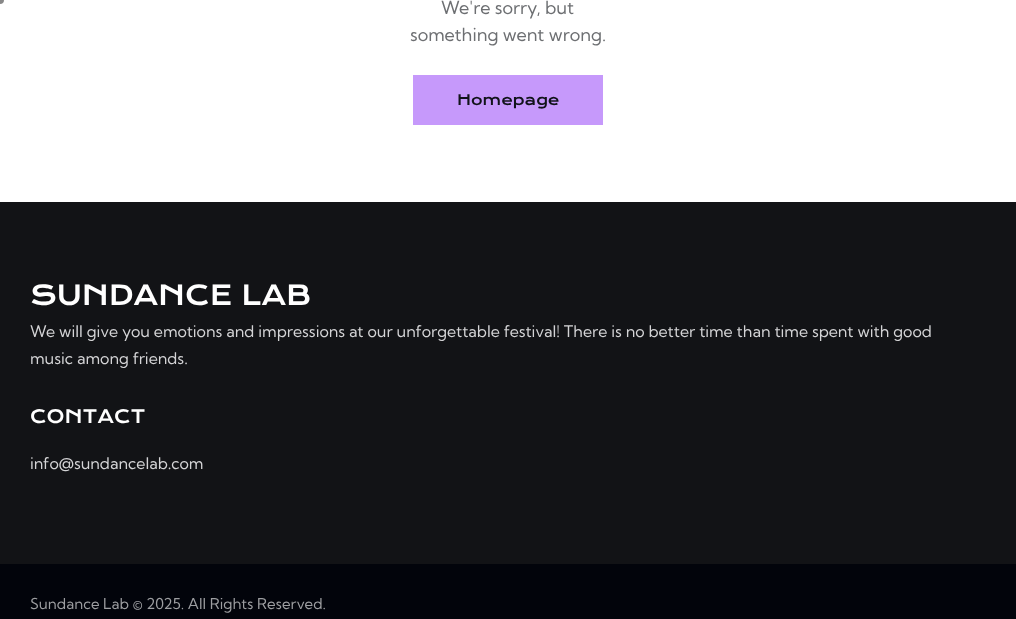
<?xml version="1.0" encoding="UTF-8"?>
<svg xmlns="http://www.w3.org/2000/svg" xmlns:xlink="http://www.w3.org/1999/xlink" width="1016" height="619">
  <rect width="100%" height="100%" fill="#ffffff" />
  <circle cx="0" cy="0" r="4" fill="#888888" />
  <rect x="413" y="75" width="190" height="50" fill="#c699fb" />
  <rect y="202" width="1016" height="362" fill="#121316" />
  <rect y="564" width="1016" height="55" fill="#02040b" />
  <text x="441" y="14" style="font-family: Kumbh Sans; font-size: 18px; fill: #6d6f72">We're sorry, but</text>
  <text x="410" y="41" style="font-family: Kumbh Sans; font-size: 18px; fill: #6d6f72">something went wrong.</text>
  <text x="457" y="105" style="font-family: Krona One; font-size: 14px; fill: #11131a">Homepage</text>
  <text x="30" y="305" style="font-family: Krona One; font-size: 27px; fill: #ffffff">SUNDANCE LAB</text>
  <text x="30" y="337" style="font-family: Kumbh Sans; font-size: 16px; fill: #d4d4d6">We will give you emotions and impressions at our unforgettable festival! There is no better time than time spent with good</text>
  <text x="30" y="364" style="font-family: Kumbh Sans; font-size: 16px; fill: #d4d4d6">music among friends.</text>
  <text x="30" y="423" style="font-family: Krona One; font-size: 18px; fill: #ffffff">CONTACT</text>
  <text x="30" y="469" style="font-family: Kumbh Sans; font-size: 16px; fill: #d4d4d6">info@sundancelab.com</text>
  <text x="30" y="609" style="font-family: Kumbh Sans; font-size: 15px; fill: #9d9ea1">Sundance Lab © 2025. All Rights Reserved.</text>
</svg>
